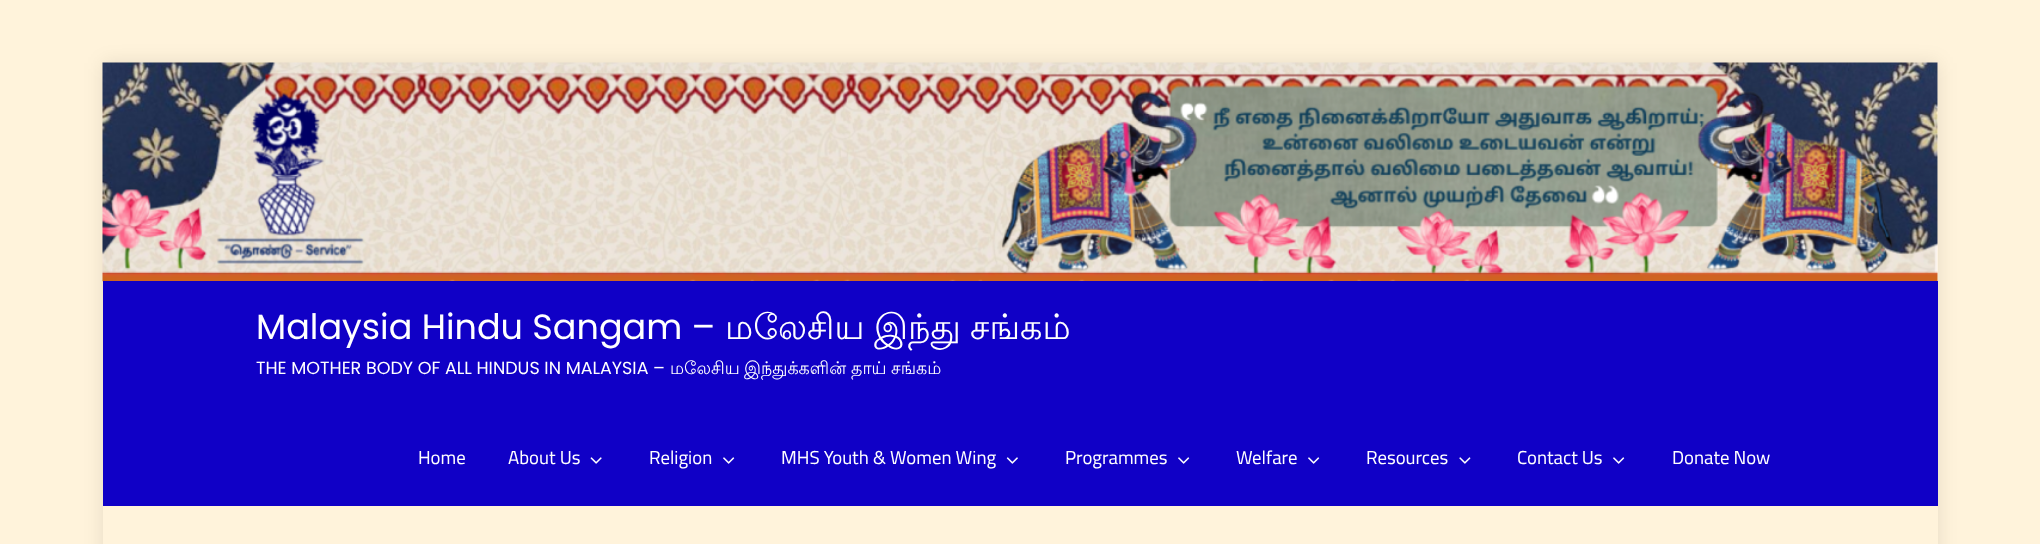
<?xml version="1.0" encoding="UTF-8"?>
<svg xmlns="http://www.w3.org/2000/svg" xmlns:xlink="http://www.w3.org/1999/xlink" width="2040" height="544">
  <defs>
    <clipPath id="clip1"><path d="M 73 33 h 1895 v 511 h -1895 z m 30 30 h 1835 v 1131 h -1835 z" clip-rule="evenodd" /></clipPath>
  </defs>
  <rect width="100%" height="100%" fill="#fff3db" />
  <g clip-path="url(#clip1)">
    <rect x="103" y="63" width="1835" height="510" fill="#000000" fill-opacity="0.1" filter="blur(9.5px)" />
  </g>
  <image x="102" y="62" width="1836" height="220" xlink:href="image1.png" />
  <rect x="103" y="281" width="1835" height="225" fill="#1000c6" />
  <image x="590" y="457" width="12" height="7" xlink:href="image2.png" />
  <image x="723" y="457" width="12" height="7" xlink:href="image3.png" />
  <image x="1006" y="457" width="12" height="7" xlink:href="image4.png" />
  <image x="1178" y="457" width="12" height="7" xlink:href="image3.png" />
  <image x="1308" y="457" width="12" height="7" xlink:href="image3.png" />
  <image x="1459" y="457" width="12" height="7" xlink:href="image5.png" />
  <image x="1613" y="457" width="12" height="7" xlink:href="image3.png" />
  <text x="256" y="339" style="font-family: Poppins; font-size: 35px; fill: #ffffff">Malaysia Hindu Sangam –</text>
  <text x="725" y="339" style="font-family: Lohit Tamil; font-size: 35px; fill: #ffffff">மலேசிய</text>
  <text x="874" y="339" style="font-family: Lohit Tamil; font-size: 35px; fill: #ffffff">இந்து</text>
  <text x="970" y="339" style="font-family: Lohit Tamil; font-size: 35px; fill: #ffffff">சங்கம்</text>
  <text x="256" y="374" style="font-family: Poppins; font-size: 17.5px; fill: #ffffff">THE MOTHER BODY OF ALL HINDUS IN MALAYSIA –</text>
  <text x="670" y="374" style="font-family: Lohit Tamil; font-size: 17.5px; fill: #ffffff">மலேசிய</text>
  <text x="744" y="374" style="font-family: Lohit Tamil; font-size: 17.5px; fill: #ffffff">இந்துக்களின்</text>
  <text x="851" y="374" style="font-family: Lohit Tamil; font-size: 17.5px; fill: #ffffff">தாய்</text>
  <text x="891" y="374" style="font-family: Lohit Tamil; font-size: 17.5px; fill: #ffffff">சங்கம்</text>
  <text x="418" y="464" style="font-family: Cairo; font-size: 18.75px; fill: #ffffff">Home</text>
  <text x="508" y="464" style="font-family: Cairo; font-size: 18.75px; fill: #ffffff">About Us</text>
  <text x="649" y="464" style="font-family: Cairo; font-size: 18.75px; fill: #ffffff">Religion</text>
  <text x="781" y="464" style="font-family: Cairo; font-size: 18.75px; fill: #ffffff">MHS Youth &amp; Women Wing</text>
  <text x="1065" y="464" style="font-family: Cairo; font-size: 18.75px; fill: #ffffff">Programmes</text>
  <text x="1236" y="464" style="font-family: Cairo; font-size: 18.75px; fill: #ffffff">Welfare</text>
  <text x="1366" y="464" style="font-family: Cairo; font-size: 18.75px; fill: #ffffff">Resources</text>
  <text x="1517" y="464" style="font-family: Cairo; font-size: 18.75px; fill: #ffffff">Contact Us</text>
  <text x="1672" y="464" style="font-family: Cairo; font-size: 18.75px; fill: #ffffff">Donate Now</text>
</svg>
